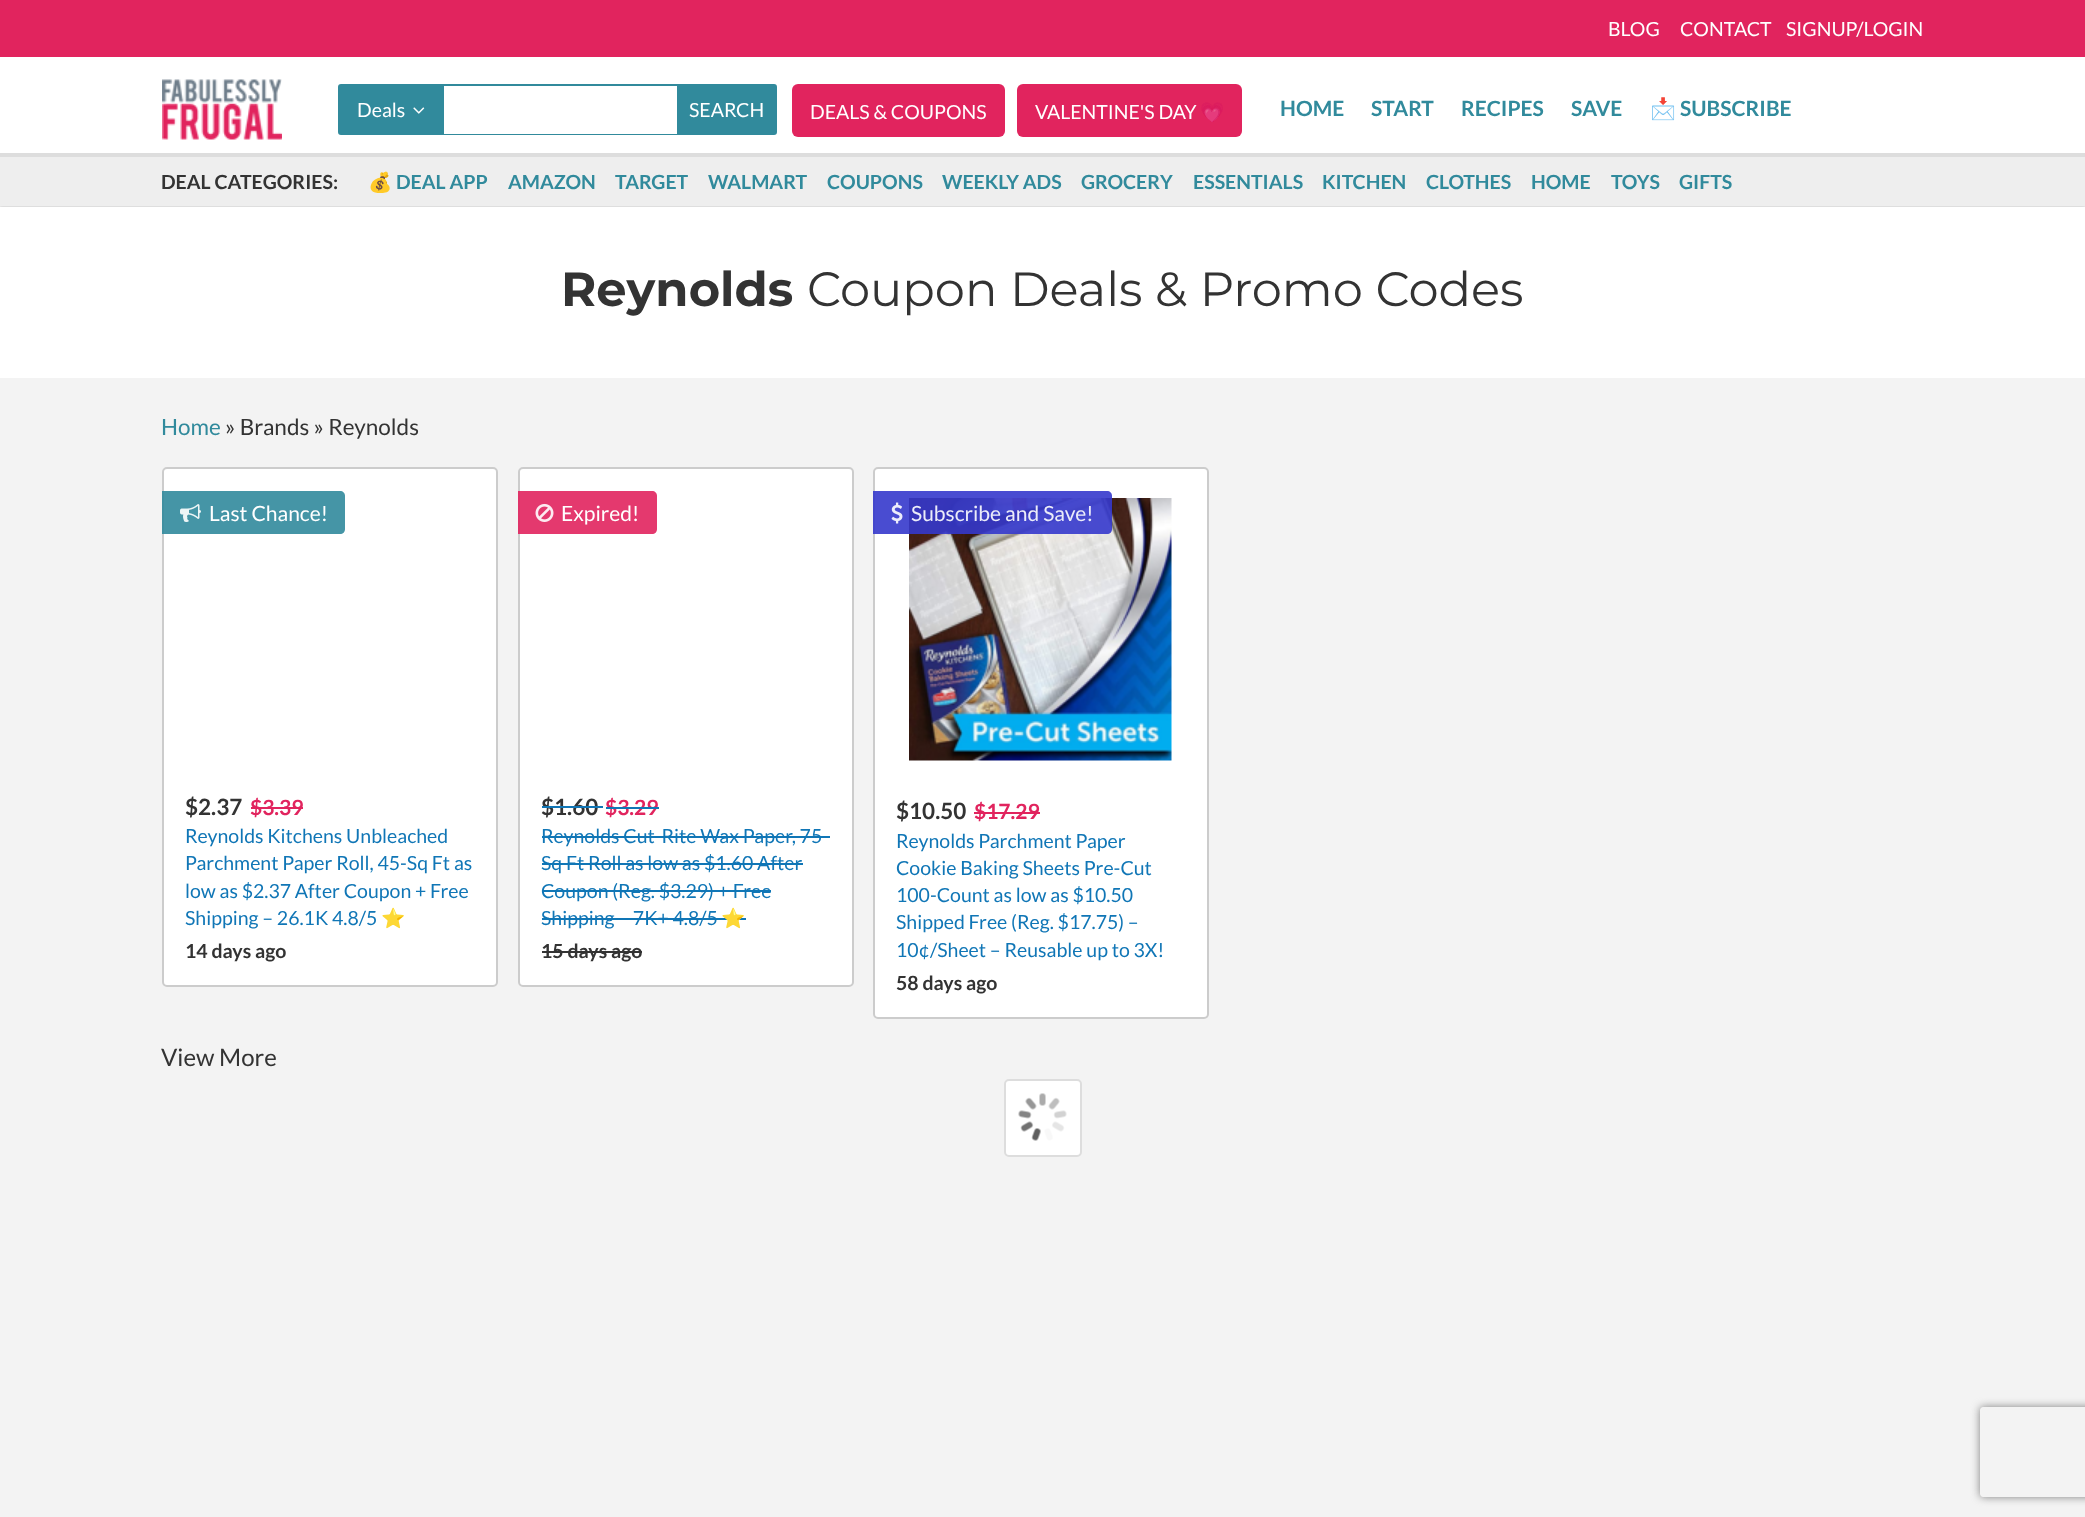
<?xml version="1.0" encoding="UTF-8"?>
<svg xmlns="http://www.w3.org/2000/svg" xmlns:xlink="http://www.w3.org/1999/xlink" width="2085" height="1517">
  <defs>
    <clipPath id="clip1"><path d="M 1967 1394 h 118 v 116 h -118 z m 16 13 h 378 c 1.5 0 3 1.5 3 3 v 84 c 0 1.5 -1.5 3 -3 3 h -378 c -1.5 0 -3 -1.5 -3 -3 v -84 c 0 -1.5 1.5 -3 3 -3 z" clip-rule="evenodd" /></clipPath>
  </defs>
  <rect width="100%" height="100%" fill="#f3f3f3" />
  <rect width="2085" height="57" fill="#e1245e" />
  <rect y="57" width="2085" height="96" fill="#ffffff" />
  <rect y="153" width="2085" height="2" fill="#dddddd" />
  <image x="162" y="79" width="120" height="61" xlink:href="image1.png" />
  <rect x="339" y="85" width="437" height="49" rx="2" fill="none" stroke="#318a9c" stroke-width="2" />
  <rect x="340" y="86" width="104" height="47" fill="#318a9c" />
  <image x="413" y="107" width="12" height="7" xlink:href="image2.png" />
  <rect x="677" y="86" width="98" height="47" fill="#318a9c" />
  <rect x="444" y="133" width="233" height="1" fill="#ffffff" />
  <rect x="792" y="84" width="213" height="53" rx="6" fill="#e1245e" />
  <rect x="1017" y="84" width="225" height="53" rx="6" fill="#e1245e" />
  <rect y="158" width="2085" height="51" fill="#dddddd" filter="blur(1.5px)" />
  <rect y="157" width="2085" height="49" fill="#eeeeee" />
  <rect y="155" width="2085" height="2" fill="#dddddd" />
  <rect y="207" width="2085" height="171" fill="#ffffff" />
  <rect x="163" y="468" width="334" height="518" rx="4" fill="#ffffff" stroke="#cccccc" stroke-width="2" />
  <path d="M 162 491 h 178 c 3 0 5 2 5 5 v 33 c 0 3 -2 5 -5 5 h -178 z" fill="#318a9c" fill-opacity="0.9" />
  <image x="180" y="504" width="21" height="18" xlink:href="image3.png" />
  <rect x="251" y="807" width="52" height="2" fill="#e1245e" />
  <rect x="519" y="468" width="334" height="518" rx="4" fill="#ffffff" stroke="#cccccc" stroke-width="2" />
  <path d="M 518 491 h 134 c 3 0 5 2 5 5 v 33 c 0 3 -2 5 -5 5 h -134 z" fill="#e1245e" fill-opacity="0.9" />
  <image x="535" y="503" width="19" height="19" xlink:href="image4.png" />
  <rect x="542" y="836" width="288" height="2" fill="#1076b6" />
  <rect x="542" y="863" width="261" height="2" fill="#1076b6" />
  <rect x="542" y="890" width="229" height="2" fill="#1076b6" />
  <rect x="542" y="918" width="204" height="2" fill="#1076b6" />
  <rect x="542" y="951" width="100" height="2" fill="#333333" />
  <rect x="874" y="468" width="334" height="550" rx="4" fill="#ffffff" stroke="#cccccc" stroke-width="2" />
  <image x="909" y="498" width="263" height="263" xlink:href="image5.png" />
  <path d="M 873 491 h 234 c 3 0 5 2 5 5 v 33 c 0 3 -2 5 -5 5 h -234 z" fill="#3539cc" fill-opacity="0.9" />
  <image x="891" y="502" width="12" height="22" xlink:href="image6.png" />
  <rect x="974" y="812" width="66" height="2" fill="#e1245e" />
  <rect x="1005" y="1080" width="76" height="76" rx="4" fill="#ffffff" stroke="#dddddd" stroke-width="2" />
  <image x="1018" y="1093" width="49" height="48" xlink:href="image7.png" />
  <g clip-path="url(#clip1)">
    <rect x="1980" y="1407" width="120" height="90" rx="3" fill="#808080" filter="blur(4px)" />
  </g>
  <text x="1608" y="36" style="font-family: Lato; font-size: 19.5px; fill: #ffffff">BLOG</text>
  <text x="1680" y="36" style="font-family: Lato; font-size: 19.5px; fill: #ffffff">CONTACT</text>
  <text x="1786" y="36" style="font-family: Lato; font-size: 19.5px; fill: #ffffff">SIGNUP/LOGIN</text>
  <text x="357" y="117" style="font-family: Lato; font-size: 19.5px; fill: #ffffff">Deals</text>
  <text x="689" y="117" style="font-family: Lato; font-size: 19.5px; fill: #ffffff">SEARCH</text>
  <text x="810" y="119" style="font-family: Lato; font-size: 19.5px; fill: #ffffff">DEALS &amp; COUPONS</text>
  <text x="1035" y="119" style="font-family: Lato; font-size: 19.5px; fill: #ffffff">VALENTINE'S DAY</text>
  <text x="1200" y="119" style="font-family: Noto Color Emoji; font-size: 19.5px; fill: #ffffff">💗</text>
  <text x="1280" y="116" style="font-family: Lato; font-size: 21px; font-weight: bold; fill: #318a9c">HOME</text>
  <text x="1371" y="116" style="font-family: Lato; font-size: 21px; font-weight: bold; fill: #318a9c">START</text>
  <text x="1461" y="116" style="font-family: Lato; font-size: 21px; font-weight: bold; fill: #318a9c">RECIPES</text>
  <text x="1571" y="116" style="font-family: Lato; font-size: 21px; font-weight: bold; fill: #318a9c">SAVE</text>
  <text x="1650" y="116" style="font-family: Noto Color Emoji; font-size: 21px; font-weight: bold; fill: #318a9c">📩</text>
  <text x="1680" y="116" style="font-family: Lato; font-size: 21px; font-weight: bold; fill: #318a9c">SUBSCRIBE</text>
  <text x="161" y="189" style="font-family: Lato; font-size: 19.5px; font-weight: bold; fill: #333333">DEAL CATEGORIES:</text>
  <text x="368" y="189" style="font-family: Noto Color Emoji; font-size: 19.5px; font-weight: bold; fill: #318a9c">💰</text>
  <text x="396" y="189" style="font-family: Lato; font-size: 19.5px; font-weight: bold; fill: #318a9c">DEAL APP</text>
  <text x="508" y="189" style="font-family: Lato; font-size: 19.5px; font-weight: bold; fill: #318a9c">AMAZON</text>
  <text x="615" y="189" style="font-family: Lato; font-size: 19.5px; font-weight: bold; fill: #318a9c">TARGET</text>
  <text x="708" y="189" style="font-family: Lato; font-size: 19.5px; font-weight: bold; fill: #318a9c">WALMART</text>
  <text x="827" y="189" style="font-family: Lato; font-size: 19.5px; font-weight: bold; fill: #318a9c">COUPONS</text>
  <text x="942" y="189" style="font-family: Lato; font-size: 19.5px; font-weight: bold; fill: #318a9c">WEEKLY ADS</text>
  <text x="1081" y="189" style="font-family: Lato; font-size: 19.5px; font-weight: bold; fill: #318a9c">GROCERY</text>
  <text x="1193" y="189" style="font-family: Lato; font-size: 19.5px; font-weight: bold; fill: #318a9c">ESSENTIALS</text>
  <text x="1322" y="189" style="font-family: Lato; font-size: 19.5px; font-weight: bold; fill: #318a9c">KITCHEN</text>
  <text x="1426" y="189" style="font-family: Lato; font-size: 19.5px; font-weight: bold; fill: #318a9c">CLOTHES</text>
  <text x="1531" y="189" style="font-family: Lato; font-size: 19.5px; font-weight: bold; fill: #318a9c">HOME</text>
  <text x="1611" y="189" style="font-family: Lato; font-size: 19.5px; font-weight: bold; fill: #318a9c">TOYS</text>
  <text x="1679" y="189" style="font-family: Lato; font-size: 19.5px; font-weight: bold; fill: #318a9c">GIFTS</text>
  <text x="561" y="306" style="font-family: Montserrat; font-size: 48px; font-weight: bold; fill: #333333">Reynolds</text>
  <text x="807" y="306" style="font-family: Montserrat; font-size: 48px; fill: #333333">Coupon Deals &amp; Promo Codes</text>
  <text x="161" y="435" style="font-family: Lato; font-size: 22.5px; fill: #318a9c">Home</text>
  <text x="225" y="435" style="font-family: Lato; font-size: 22.5px; fill: #333333">» Brands » Reynolds</text>
  <text x="209" y="521" style="font-family: Lato; font-size: 21px; fill: #ffffff">Last Chance!</text>
  <text x="185" y="815" style="font-family: Lato; font-size: 22.5px; font-weight: bold; fill: #333333">$2.37</text>
  <text x="250" y="815" style="font-family: Lato; font-size: 21px; font-weight: bold; fill: #e1245e">$3.39</text>
  <text x="185" y="843" style="font-family: Lato; font-size: 19.5px; fill: #1076b6">Reynolds Kitchens Unbleached</text>
  <text x="185" y="870" style="font-family: Lato; font-size: 19.5px; fill: #1076b6">Parchment Paper Roll, 45-Sq Ft as</text>
  <text x="185" y="898" style="font-family: Lato; font-size: 19.5px; fill: #1076b6">low as $2.37 After Coupon + Free</text>
  <text x="185" y="925" style="font-family: Lato; font-size: 19.5px; fill: #1076b6">Shipping – 26.1K 4.8/5</text>
  <text x="381" y="925" style="font-family: Noto Color Emoji; font-size: 19.5px; fill: #1076b6">⭐</text>
  <text x="185" y="958" style="font-family: Lato; font-size: 19.5px; font-weight: bold; fill: #333333">14 days ago</text>
  <text x="561" y="521" style="font-family: Lato; font-size: 21px; fill: #ffffff">Expired!</text>
  <text x="541" y="815" style="font-family: Lato; font-size: 22.5px; font-weight: bold; fill: #333333">$1.60</text>
  <rect x="542" y="806" width="61" height="2" fill="#1076b6" />
  <text x="605" y="815" style="font-family: Lato; font-size: 21px; font-weight: bold; fill: #e1245e">$3.29</text>
  <rect x="606" y="807" width="53" height="2" fill="#1076b6" />
  <text x="541" y="843" style="font-family: Lato; font-size: 19.5px; fill: #1076b6">Reynolds Cut-Rite Wax Paper, 75</text>
  <text x="541" y="870" style="font-family: Lato; font-size: 19.5px; fill: #1076b6">Sq Ft Roll as low as $1.60 After</text>
  <text x="541" y="898" style="font-family: Lato; font-size: 19.5px; fill: #1076b6">Coupon (Reg. $3.29) + Free</text>
  <text x="541" y="925" style="font-family: Lato; font-size: 19.5px; fill: #1076b6">Shipping – 7K+ 4.8/5</text>
  <text x="721" y="925" style="font-family: Noto Color Emoji; font-size: 19.5px; fill: #1076b6">⭐</text>
  <text x="541" y="958" style="font-family: Lato; font-size: 19.5px; font-weight: bold; fill: #333333">15 days ago</text>
  <text x="911" y="521" style="font-family: Lato; font-size: 21px; fill: #ebecf9">Subscribe and Save!</text>
  <text x="896" y="819" style="font-family: Lato; font-size: 22.5px; font-weight: bold; fill: #333333">$10.50</text>
  <text x="974" y="819" style="font-family: Lato; font-size: 21px; font-weight: bold; fill: #e1245e">$17.29</text>
  <text x="896" y="848" style="font-family: Lato; font-size: 19.5px; fill: #1076b6">Reynolds Parchment Paper</text>
  <text x="896" y="875" style="font-family: Lato; font-size: 19.5px; fill: #1076b6">Cookie Baking Sheets Pre-Cut</text>
  <text x="896" y="902" style="font-family: Lato; font-size: 19.5px; fill: #1076b6">100-Count as low as $10.50</text>
  <text x="896" y="929" style="font-family: Lato; font-size: 19.5px; fill: #1076b6">Shipped Free (Reg. $17.75) –</text>
  <text x="896" y="957" style="font-family: Lato; font-size: 19.5px; fill: #1076b6">10¢/Sheet – Reusable up to 3X!</text>
  <text x="896" y="990" style="font-family: Lato; font-size: 19.5px; font-weight: bold; fill: #333333">58 days ago</text>
  <text x="161" y="1066" style="font-family: Lato; font-size: 24px; fill: #333333">View More</text>
</svg>
